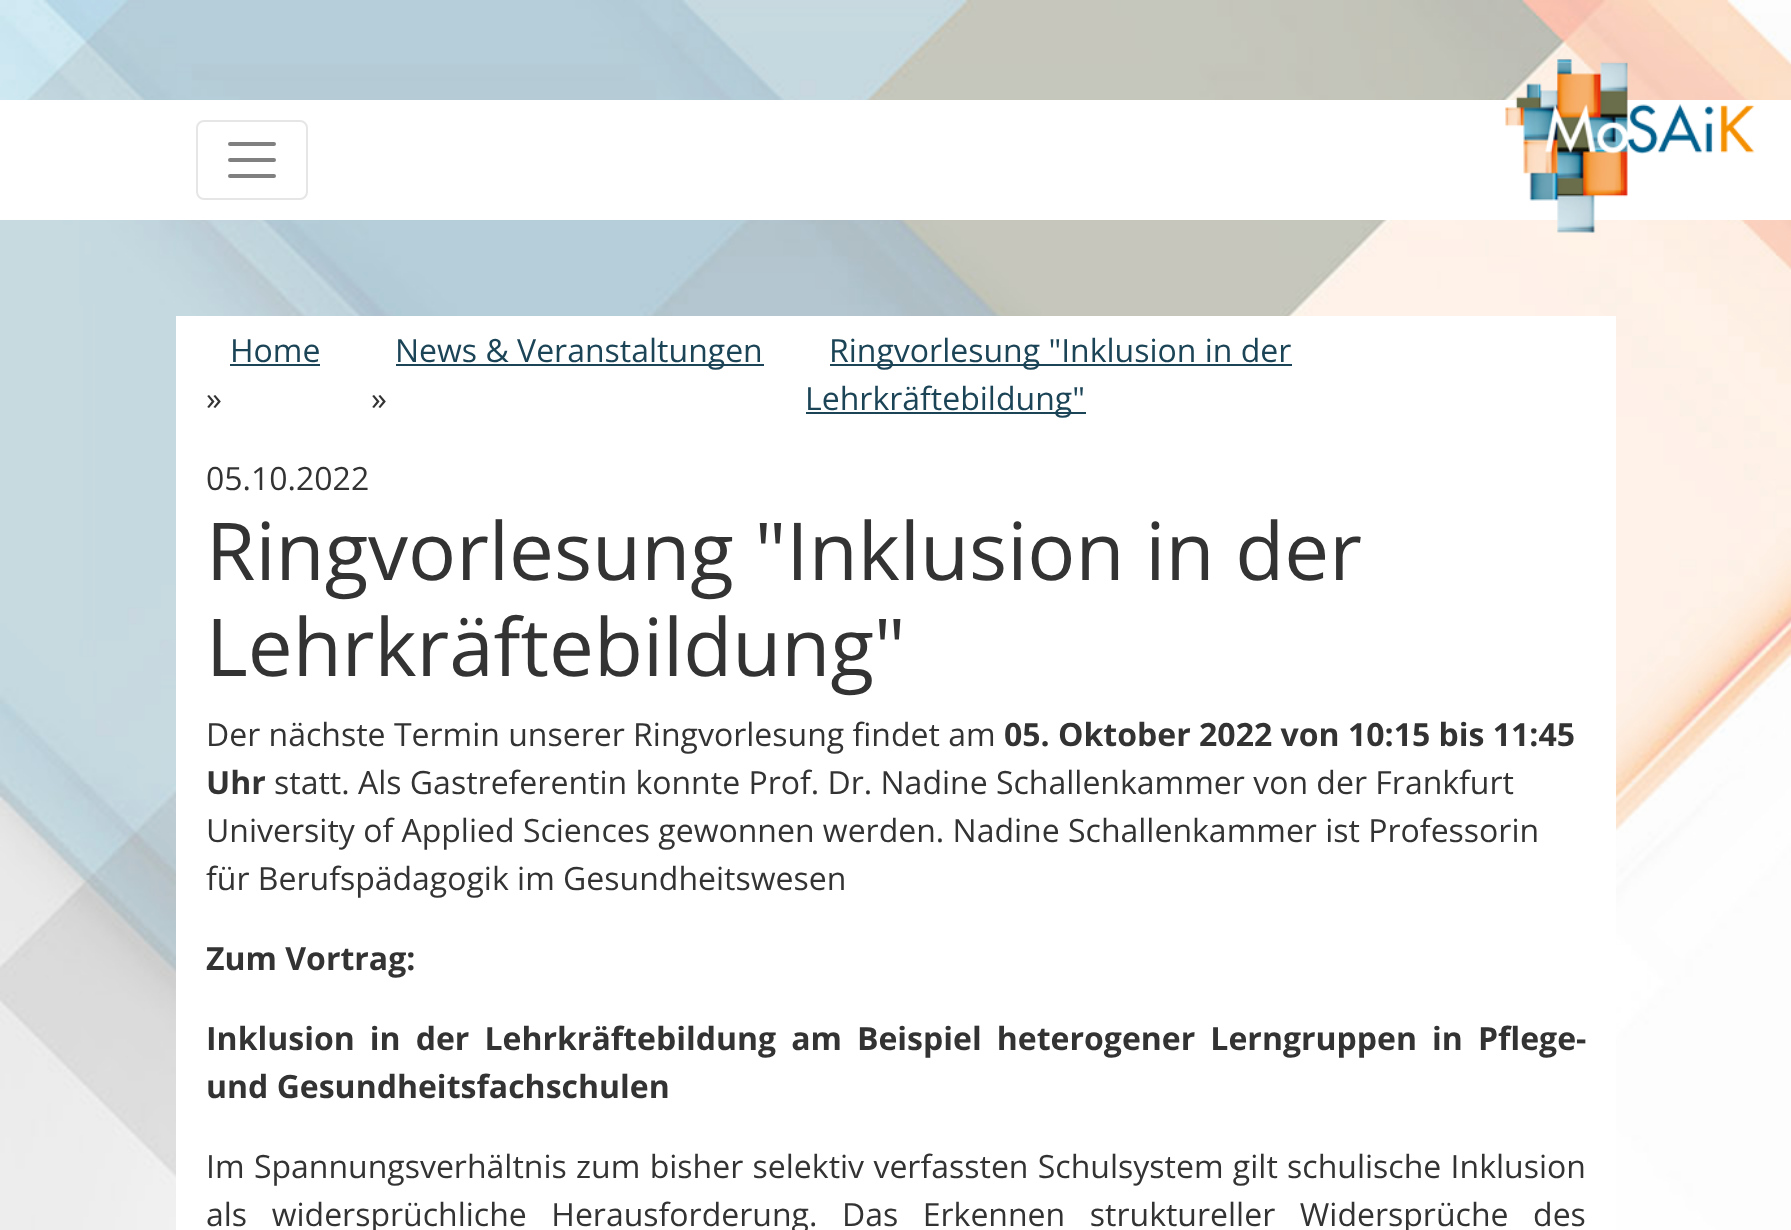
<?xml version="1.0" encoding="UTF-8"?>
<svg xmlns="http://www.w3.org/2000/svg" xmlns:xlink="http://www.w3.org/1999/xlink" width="1791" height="1230">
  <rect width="100%" height="100%" fill="#ffffff" />
  <image x="0" y="0" width="1791" height="1230" xlink:href="image1.png" />
  <rect y="100" width="1791" height="120" fill="#ffffff" />
  <rect x="197" y="121" width="110" height="78" rx="7" fill="none" stroke="#e6e6e6" stroke-width="2" />
  <path d="M 230 144 h 44 m -44 16 h 44 m -44 16 h 44" fill="none" stroke="#808080" stroke-width="4" stroke-linecap="round" />
  <image x="1505" y="59" width="250" height="174" xlink:href="image2.png" />
  <rect x="176" y="316" width="1440" height="914" fill="#ffffff" />
  <rect x="230" y="364" width="90" height="2" fill="#1c4457" />
  <rect x="396" y="364" width="368" height="2" fill="#1c4457" />
  <rect x="830" y="364" width="462" height="2" fill="#1c4457" />
  <rect x="806" y="412" width="280" height="2" fill="#1c4457" />
  <text x="230" y="362" style="font-family: Open Sans; font-size: 32px; fill: #1c4457">Home</text>
  <text x="206" y="410" style="font-family: Open Sans; font-size: 32px; fill: #333333">»</text>
  <text x="395" y="362" style="font-family: Open Sans; font-size: 32px; fill: #1c4457">News &amp; Veranstaltungen</text>
  <text x="371" y="410" style="font-family: Open Sans; font-size: 32px; fill: #333333">»</text>
  <text x="829" y="362" style="font-family: Open Sans; font-size: 32px; fill: #1c4457">Ringvorlesung "Inklusion in der</text>
  <text x="805" y="410" style="font-family: Open Sans; font-size: 32px; fill: #1c4457">Lehrkräftebildung"</text>
  <text x="206" y="490" style="font-family: Open Sans; font-size: 32px; fill: #333333">05.10.2022</text>
  <text x="206" y="580" style="font-family: Open Sans; font-size: 80px; fill: #333333">Ringvorlesung "Inklusion in der</text>
  <text x="206" y="676" style="font-family: Open Sans; font-size: 80px; fill: #333333">Lehrkräftebildung"</text>
  <text x="206" y="746" style="font-family: Open Sans; font-size: 32px; fill: #333333">Der nächste Termin unserer Ringvorlesung findet am</text>
  <text x="1004" y="746" style="font-family: Open Sans; font-size: 32px; font-weight: bold; fill: #333333">05. Oktober 2022 von 10:15 bis 11:45</text>
  <text x="206" y="794" style="font-family: Open Sans; font-size: 32px; font-weight: bold; fill: #333333">Uhr</text>
  <text x="274" y="794" style="font-family: Open Sans; font-size: 32px; fill: #333333">statt. Als Gastreferentin konnte Prof. Dr. Nadine Schallenkammer von der Frankfurt</text>
  <text x="206" y="842" style="font-family: Open Sans; font-size: 32px; fill: #333333">University of Applied Sciences gewonnen werden. Nadine Schallenkammer ist Professorin</text>
  <text x="206" y="890" style="font-family: Open Sans; font-size: 32px; fill: #333333">für Berufspädagogik im Gesundheitswesen</text>
  <text x="206" y="970" style="font-family: Open Sans; font-size: 32px; font-weight: bold; fill: #333333">Zum Vortrag:</text>
  <text x="206" y="1050" word-spacing="6.75" style="font-family: Open Sans; font-size: 32px; font-weight: bold; fill: #333333">Inklusion in der Lehrkräftebildung am Beispiel heterogener Lerngruppen in Pflege-</text>
  <text x="206" y="1098" style="font-family: Open Sans; font-size: 32px; font-weight: bold; fill: #333333">und Gesundheitsfachschulen</text>
  <text x="206" y="1178" word-spacing="1" style="font-family: Open Sans; font-size: 32px; fill: #333333">Im Spannungsverhältnis zum bisher selektiv verfassten Schulsystem gilt schulische Inklusion</text>
  <text x="206" y="1226" word-spacing="16.25" style="font-family: Open Sans; font-size: 32px; fill: #333333">als widersprüchliche Herausforderung. Das Erkennen struktureller Widersprüche des</text>
</svg>
